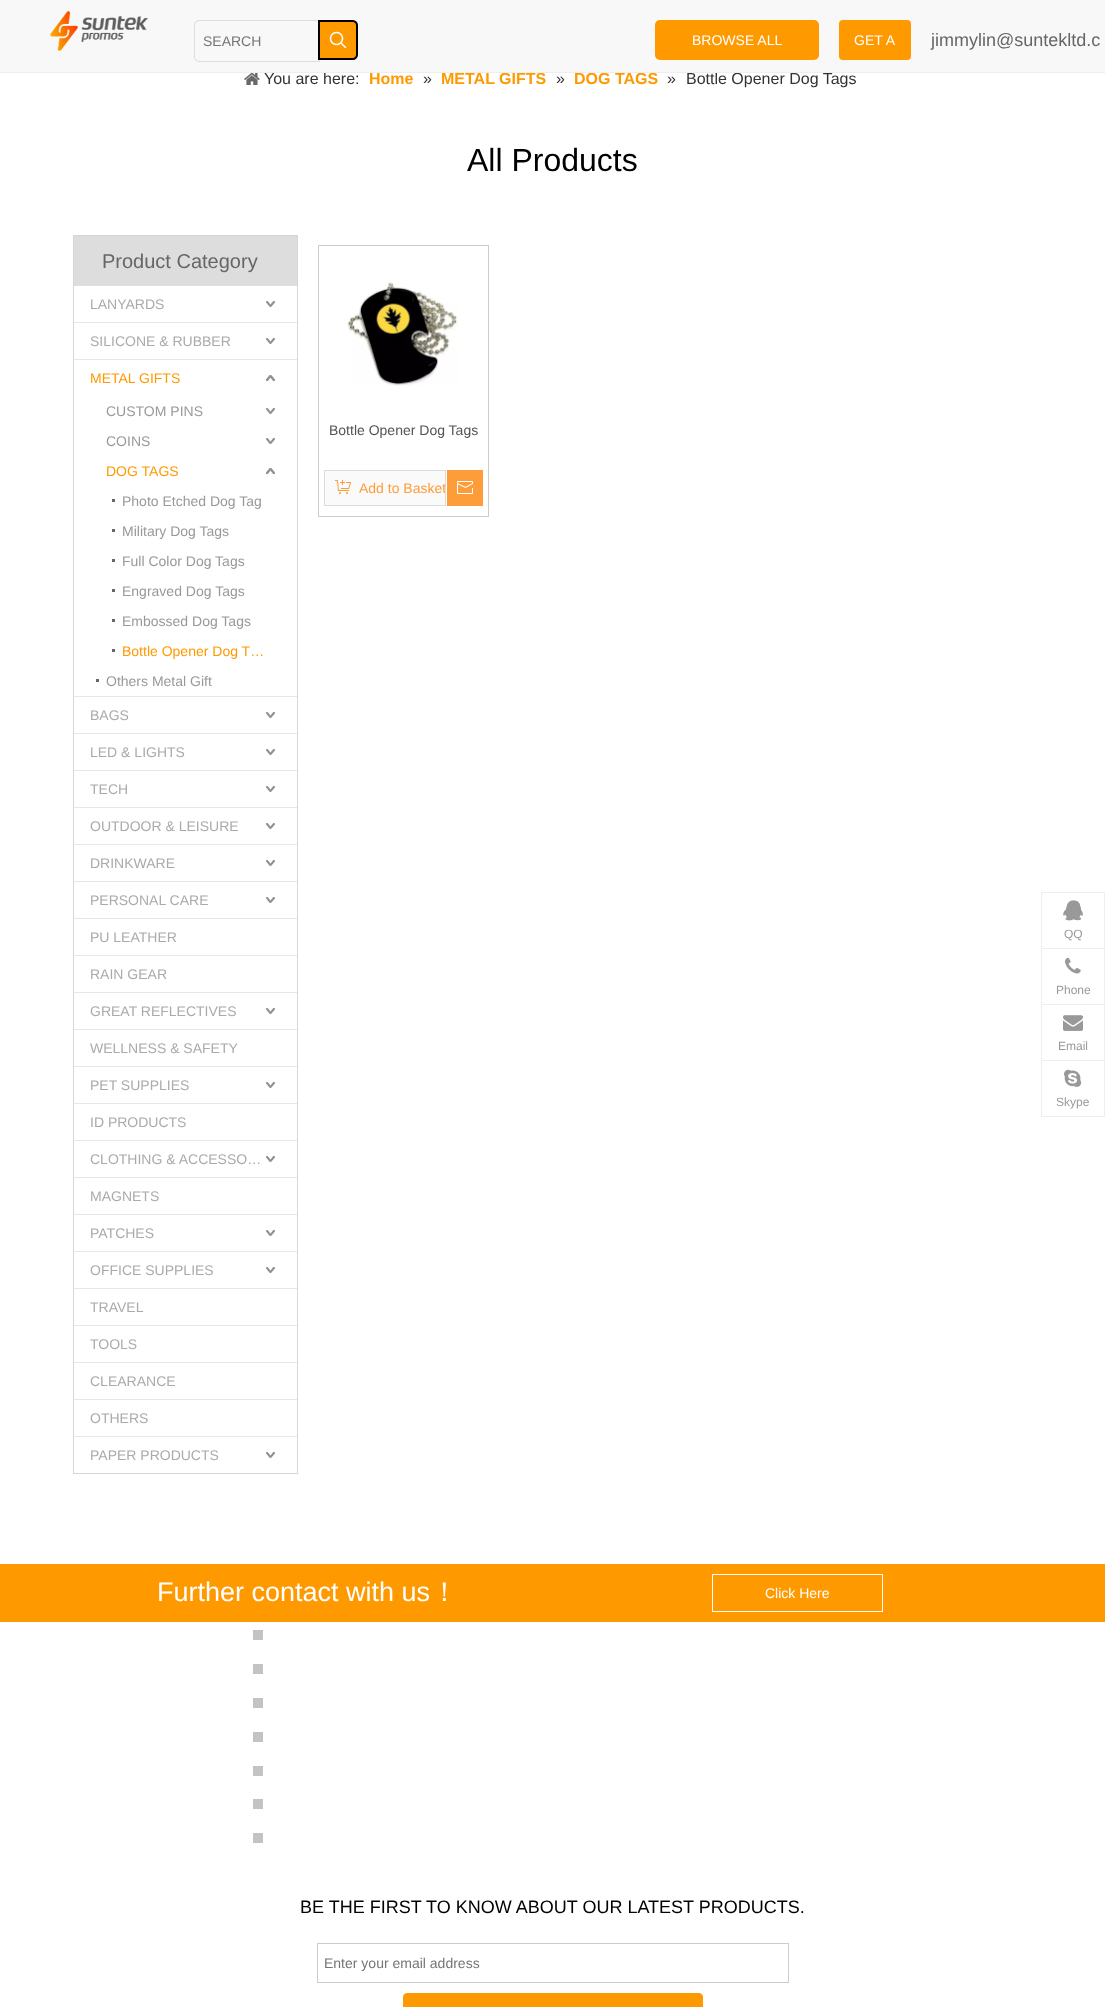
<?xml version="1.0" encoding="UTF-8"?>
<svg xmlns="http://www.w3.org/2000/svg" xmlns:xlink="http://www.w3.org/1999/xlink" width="1105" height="2007">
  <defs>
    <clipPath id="clip1"><rect x="325" y="471" width="120" height="34" /></clipPath>
  </defs>
  <rect width="100%" height="100%" fill="#ffffff" />
  <rect width="1105" height="72" fill="#f8f8f8" />
  <image x="50" y="11" width="98" height="40" xlink:href="image1.png" />
  <path d="M 199 20.5 h 120.5 v 41 h -120.5 c -2.5 0 -4.5 -2 -4.5 -4.5 v -32 c 0 -2.5 2 -4.5 4.5 -4.5 z" fill="none" stroke="#dddddd" />
  <path d="M 319 21 h 34 c 2 0 4 2 4 4 v 30 c 0 2 -2 4 -4 4 h -34 z" fill="#ff9900" stroke="#000000" stroke-width="2" />
  <image x="329" y="31" width="18" height="18" xlink:href="image2.png" />
  <rect x="655" y="20" width="164" height="40" rx="5" fill="#ff9900" />
  <rect x="839" y="20" width="72" height="40" rx="4" fill="#ff9900" />
  <image x="244" y="73" width="16" height="12" xlink:href="image3.png" />
  <rect x="73.5" y="235.5" width="224" height="1238" fill="none" stroke="#d6d6d6" />
  <rect x="74" y="236" width="223" height="50" fill="#dddddd" />
  <image x="266" y="301" width="9" height="6" xlink:href="image4.png" />
  <rect x="74" y="322" width="223" height="1" fill="#e7e7e7" />
  <image x="266" y="338" width="9" height="6" xlink:href="image4.png" />
  <rect x="74" y="359" width="223" height="1" fill="#e7e7e7" />
  <image x="266" y="375" width="9" height="6" xlink:href="image5.png" />
  <image x="266" y="408" width="9" height="6" xlink:href="image4.png" />
  <image x="266" y="438" width="9" height="6" xlink:href="image4.png" />
  <image x="266" y="468" width="9" height="6" xlink:href="image5.png" />
  <rect x="112" y="499" width="3" height="3" fill="#666666" />
  <rect x="112" y="529" width="3" height="3" fill="#666666" />
  <rect x="112" y="559" width="3" height="3" fill="#666666" />
  <rect x="112" y="589" width="3" height="3" fill="#666666" />
  <rect x="112" y="619" width="3" height="3" fill="#666666" />
  <rect x="112" y="649" width="3" height="3" fill="#666666" />
  <rect x="96" y="679" width="3" height="3" fill="#666666" />
  <rect x="74" y="696" width="223" height="1" fill="#e7e7e7" />
  <image x="266" y="712" width="9" height="6" xlink:href="image4.png" />
  <rect x="74" y="733" width="223" height="1" fill="#e7e7e7" />
  <image x="266" y="749" width="9" height="6" xlink:href="image4.png" />
  <rect x="74" y="770" width="223" height="1" fill="#e7e7e7" />
  <image x="266" y="786" width="9" height="6" xlink:href="image4.png" />
  <rect x="74" y="807" width="223" height="1" fill="#e7e7e7" />
  <image x="266" y="823" width="9" height="6" xlink:href="image4.png" />
  <rect x="74" y="844" width="223" height="1" fill="#e7e7e7" />
  <image x="266" y="860" width="9" height="6" xlink:href="image4.png" />
  <rect x="74" y="881" width="223" height="1" fill="#e7e7e7" />
  <image x="266" y="897" width="9" height="6" xlink:href="image4.png" />
  <rect x="74" y="918" width="223" height="1" fill="#e7e7e7" />
  <rect x="74" y="955" width="223" height="1" fill="#e7e7e7" />
  <rect x="74" y="992" width="223" height="1" fill="#e7e7e7" />
  <image x="266" y="1008" width="9" height="6" xlink:href="image4.png" />
  <rect x="74" y="1029" width="223" height="1" fill="#e7e7e7" />
  <rect x="74" y="1066" width="223" height="1" fill="#e7e7e7" />
  <image x="266" y="1082" width="9" height="6" xlink:href="image4.png" />
  <rect x="74" y="1103" width="223" height="1" fill="#e7e7e7" />
  <rect x="74" y="1140" width="223" height="1" fill="#e7e7e7" />
  <image x="266" y="1156" width="9" height="6" xlink:href="image4.png" />
  <rect x="74" y="1177" width="223" height="1" fill="#e7e7e7" />
  <rect x="74" y="1214" width="223" height="1" fill="#e7e7e7" />
  <image x="266" y="1230" width="9" height="6" xlink:href="image4.png" />
  <rect x="74" y="1251" width="223" height="1" fill="#e7e7e7" />
  <image x="266" y="1267" width="9" height="6" xlink:href="image4.png" />
  <rect x="74" y="1288" width="223" height="1" fill="#e7e7e7" />
  <rect x="74" y="1325" width="223" height="1" fill="#e7e7e7" />
  <rect x="74" y="1362" width="223" height="1" fill="#e7e7e7" />
  <rect x="74" y="1399" width="223" height="1" fill="#e7e7e7" />
  <rect x="74" y="1436" width="223" height="1" fill="#e7e7e7" />
  <image x="266" y="1452" width="9" height="6" xlink:href="image4.png" />
  <rect x="318.5" y="245.5" width="170" height="271" fill="none" stroke="#cccccc" />
  <image x="347" y="282" width="112" height="104" xlink:href="image6.png" />
  <rect x="324.5" y="470.5" width="121" height="35" fill="#fafafa" stroke="#dcdcdc" />
  <image x="335" y="480" width="16" height="14" xlink:href="image7.png" />
  <rect x="447" y="470" width="36" height="36" fill="#fd9d39" />
  <image x="457" y="481" width="16" height="13" xlink:href="image8.png" />
  <rect y="1564" width="1105" height="58" fill="#ff9900" />
  <rect x="712.5" y="1574.5" width="170" height="37" fill="none" stroke="#ffffff" />
  <rect x="1041" y="892" width="64" height="1" fill="#eeeeee" />
  <rect x="1104" y="892" width="1" height="56" fill="#eeeeee" />
  <rect x="1041" y="892" width="1" height="56" fill="#eeeeee" />
  <image x="1063" y="900" width="20" height="21" xlink:href="image9.png" />
  <rect x="1041" y="948" width="64" height="1" fill="#eeeeee" />
  <rect x="1104" y="948" width="1" height="56" fill="#eeeeee" />
  <rect x="1041" y="948" width="1" height="56" fill="#eeeeee" />
  <image x="1065" y="957" width="16" height="17" xlink:href="image10.png" />
  <rect x="1041" y="1004" width="64" height="1" fill="#eeeeee" />
  <rect x="1104" y="1004" width="1" height="56" fill="#eeeeee" />
  <rect x="1041" y="1004" width="1" height="56" fill="#eeeeee" />
  <image x="1063" y="1015" width="20" height="16" xlink:href="image11.png" />
  <rect x="1041.5" y="1060.5" width="63" height="56" fill="none" stroke="#eeeeee" />
  <image x="1064" y="1069" width="18" height="18" xlink:href="image12.png" />
  <rect x="253" y="1630" width="10" height="10" fill="#c3c3c3" />
  <rect x="253" y="1664" width="10" height="10" fill="#c3c3c3" />
  <rect x="253" y="1698" width="10" height="10" fill="#c3c3c3" />
  <rect x="253" y="1732" width="10" height="10" fill="#c3c3c3" />
  <rect x="253" y="1766" width="10" height="10" fill="#c3c3c3" />
  <rect x="253" y="1799" width="10" height="10" fill="#c3c3c3" />
  <rect x="253" y="1833" width="10" height="10" fill="#c3c3c3" />
  <rect x="317.5" y="1943.5" width="471" height="39" fill="none" stroke="#cccccc" />
  <rect x="403.5" y="1993.5" width="299" height="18" rx="3.5" fill="#ff9900" stroke="#ff9900" />
  <text x="203" y="46" style="font-family: Liberation Sans; font-size: 14px; fill: #757575">SEARCH</text>
  <text x="692" y="45" style="font-family: Liberation Sans; font-size: 14px; fill: #ffffff">BROWSE ALL</text>
  <text x="854" y="45" style="font-family: Liberation Sans; font-size: 14px; fill: #ffffff">GET A</text>
  <text x="931" y="46" style="font-family: Liberation Sans; font-size: 18px; fill: #666666">jimmylin@suntekltd.c</text>
  <text x="264" y="84" style="font-family: Liberation Sans; font-size: 16px; fill: #333333">You are here:</text>
  <text x="369" y="84" style="font-family: Liberation Sans; font-size: 16px; font-weight: bold; fill: #ff9900">Home</text>
  <text x="423" y="84" style="font-family: Liberation Sans; font-size: 16px; fill: #333333">»</text>
  <text x="441" y="84" style="font-family: Liberation Sans; font-size: 16px; font-weight: bold; fill: #ff9900">METAL GIFTS</text>
  <text x="556" y="84" style="font-family: Liberation Sans; font-size: 16px; fill: #333333">»</text>
  <text x="574" y="84" style="font-family: Liberation Sans; font-size: 16px; font-weight: bold; fill: #ff9900">DOG TAGS</text>
  <text x="667" y="84" style="font-family: Liberation Sans; font-size: 16px; fill: #333333">»</text>
  <text x="686" y="84" style="font-family: Liberation Sans; font-size: 16px; fill: #333333">Bottle Opener Dog Tags</text>
  <rect y="72" width="1105" height="1" fill="#eeeeee" />
  <text x="467" y="171" style="font-family: Liberation Sans; font-size: 32px; fill: #000000">All Products</text>
  <text x="102" y="268" style="font-family: Liberation Sans; font-size: 20px; fill: #666666">Product Category</text>
  <text x="90" y="309" style="font-family: Liberation Sans; font-size: 14px; fill: #aaaaaa">LANYARDS</text>
  <text x="90" y="346" style="font-family: Liberation Sans; font-size: 14px; fill: #aaaaaa">SILICONE &amp; RUBBER</text>
  <text x="90" y="383" style="font-family: Liberation Sans; font-size: 14px; fill: #ff9900">METAL GIFTS</text>
  <text x="106" y="416" style="font-family: Liberation Sans; font-size: 14px; fill: #999999">CUSTOM PINS</text>
  <text x="106" y="446" style="font-family: Liberation Sans; font-size: 14px; fill: #999999">COINS</text>
  <text x="106" y="476" style="font-family: Liberation Sans; font-size: 14px; fill: #ff9900">DOG TAGS</text>
  <text x="122" y="506" style="font-family: Liberation Sans; font-size: 14px; fill: #999999">Photo Etched Dog Tag</text>
  <text x="122" y="536" style="font-family: Liberation Sans; font-size: 14px; fill: #999999">Military Dog Tags</text>
  <text x="122" y="566" style="font-family: Liberation Sans; font-size: 14px; fill: #999999">Full Color Dog Tags</text>
  <text x="122" y="596" style="font-family: Liberation Sans; font-size: 14px; fill: #999999">Engraved Dog Tags</text>
  <text x="122" y="626" style="font-family: Liberation Sans; font-size: 14px; fill: #999999">Embossed Dog Tags</text>
  <text x="122" y="656" style="font-family: Liberation Sans; font-size: 14px; fill: #ff9900">Bottle Opener Dog T…</text>
  <text x="106" y="686" style="font-family: Liberation Sans; font-size: 14px; fill: #999999">Others Metal Gift</text>
  <text x="90" y="720" style="font-family: Liberation Sans; font-size: 14px; fill: #aaaaaa">BAGS</text>
  <text x="90" y="757" style="font-family: Liberation Sans; font-size: 14px; fill: #aaaaaa">LED &amp; LIGHTS</text>
  <text x="90" y="794" style="font-family: Liberation Sans; font-size: 14px; fill: #aaaaaa">TECH</text>
  <text x="90" y="831" style="font-family: Liberation Sans; font-size: 14px; fill: #aaaaaa">OUTDOOR &amp; LEISURE</text>
  <text x="90" y="868" style="font-family: Liberation Sans; font-size: 14px; fill: #aaaaaa">DRINKWARE</text>
  <text x="90" y="905" style="font-family: Liberation Sans; font-size: 14px; fill: #aaaaaa">PERSONAL CARE</text>
  <text x="90" y="942" style="font-family: Liberation Sans; font-size: 14px; fill: #aaaaaa">PU LEATHER</text>
  <text x="90" y="979" style="font-family: Liberation Sans; font-size: 14px; fill: #aaaaaa">RAIN GEAR</text>
  <text x="90" y="1016" style="font-family: Liberation Sans; font-size: 14px; fill: #aaaaaa">GREAT REFLECTIVES</text>
  <text x="90" y="1053" style="font-family: Liberation Sans; font-size: 14px; fill: #aaaaaa">WELLNESS &amp; SAFETY</text>
  <text x="90" y="1090" style="font-family: Liberation Sans; font-size: 14px; fill: #aaaaaa">PET SUPPLIES</text>
  <text x="90" y="1127" style="font-family: Liberation Sans; font-size: 14px; fill: #aaaaaa">ID PRODUCTS</text>
  <text x="90" y="1164" style="font-family: Liberation Sans; font-size: 14px; fill: #aaaaaa">CLOTHING &amp; ACCESSO…</text>
  <text x="90" y="1201" style="font-family: Liberation Sans; font-size: 14px; fill: #aaaaaa">MAGNETS</text>
  <text x="90" y="1238" style="font-family: Liberation Sans; font-size: 14px; fill: #aaaaaa">PATCHES</text>
  <text x="90" y="1275" style="font-family: Liberation Sans; font-size: 14px; fill: #aaaaaa">OFFICE SUPPLIES</text>
  <text x="90" y="1312" style="font-family: Liberation Sans; font-size: 14px; fill: #aaaaaa">TRAVEL</text>
  <text x="90" y="1349" style="font-family: Liberation Sans; font-size: 14px; fill: #aaaaaa">TOOLS</text>
  <text x="90" y="1386" style="font-family: Liberation Sans; font-size: 14px; fill: #aaaaaa">CLEARANCE</text>
  <text x="90" y="1423" style="font-family: Liberation Sans; font-size: 14px; fill: #aaaaaa">OTHERS</text>
  <text x="90" y="1460" style="font-family: Liberation Sans; font-size: 14px; fill: #aaaaaa">PAPER PRODUCTS</text>
  <text x="329" y="435" style="font-family: Liberation Sans; font-size: 14px; fill: #545454">Bottle Opener Dog Tags</text>
  <g clip-path="url(#clip1)">
    <text x="359" y="493" style="font-family: Liberation Sans; font-size: 14px; fill: #fd9d39">Add to Basket</text>
  </g>
  <text x="157" y="1601" style="font-family: Liberation Sans; font-size: 27px; fill: #ffffff">Further contact with us</text>
  <text x="431" y="1601" style="font-family: WenQuanYi Zen Hei; font-size: 27px; font-weight: 500; fill: #ffffff">！</text>
  <text x="765" y="1598" style="font-family: Liberation Sans; font-size: 14px; fill: #ffffff">Click Here</text>
  <text x="1064" y="938" style="font-family: Liberation Sans; font-size: 12px; fill: #999999">QQ</text>
  <text x="1056" y="994" style="font-family: Liberation Sans; font-size: 12px; fill: #999999">Phone</text>
  <text x="1058" y="1050" style="font-family: Liberation Sans; font-size: 12px; fill: #999999">Email</text>
  <text x="1056" y="1106" style="font-family: Liberation Sans; font-size: 12px; fill: #999999">Skype</text>
  <text x="300" y="1913" style="font-family: Liberation Sans; font-size: 18px; fill: #000000">BE THE FIRST TO KNOW ABOUT OUR LATEST PRODUCTS.</text>
  <text x="324" y="1968" style="font-family: Liberation Sans; font-size: 14px; fill: #757575">Enter your email address</text>
</svg>
